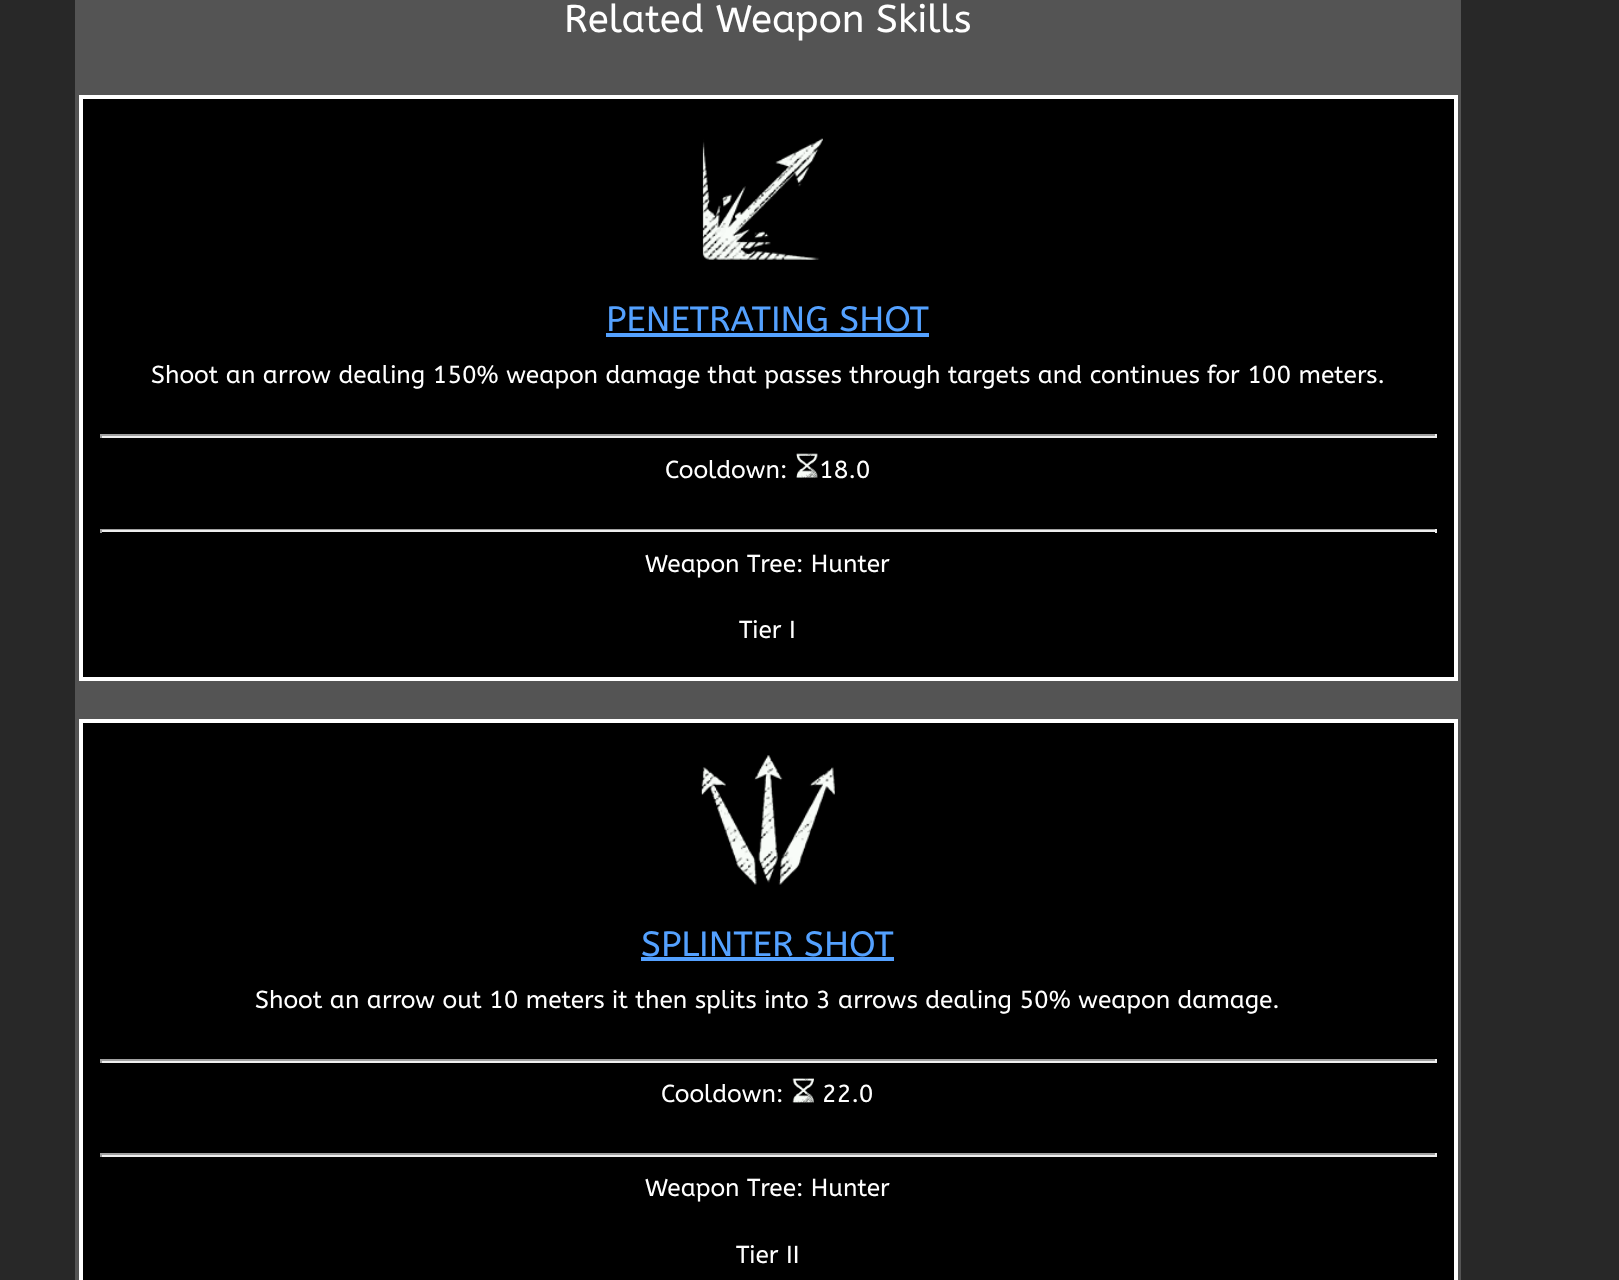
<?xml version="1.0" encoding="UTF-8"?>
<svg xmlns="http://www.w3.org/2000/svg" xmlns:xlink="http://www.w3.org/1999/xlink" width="1619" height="1280">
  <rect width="100%" height="100%" fill="#282828" />
  <rect x="75" width="1386" height="1280" fill="#545454" />
  <rect x="81" y="97" width="1375" height="582" fill="#000000" stroke="#ffffff" stroke-width="4" />
  <image x="702" y="138" width="121" height="122" xlink:href="image1.png" />
  <rect x="606" y="333" width="323" height="4" fill="#54a1ff" />
  <rect x="100" y="434" width="1337" height="2" fill="#9f9f9f" />
  <rect x="1435" y="434" width="2" height="4" fill="#eeeeee" />
  <rect x="100" y="436" width="1337" height="2" fill="#eeeeee" />
  <rect x="100" y="434" width="2" height="4" fill="#9f9f9f" />
  <image x="796" y="453" width="22" height="25" xlink:href="image2.png" />
  <rect x="100" y="529" width="1337" height="1" fill="#9f9f9f" />
  <rect x="1435" y="529" width="2" height="4" fill="#eeeeee" />
  <rect x="100" y="530" width="1337" height="2" fill="#eeeeee" />
  <rect x="100" y="529" width="2" height="4" fill="#9f9f9f" />
  <rect x="81" y="721" width="1375" height="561" fill="#000000" stroke="#ffffff" stroke-width="4" />
  <image x="701" y="755" width="134" height="130" xlink:href="image3.png" />
  <rect x="641" y="957" width="253" height="4" fill="#54a1ff" />
  <rect x="100" y="1059" width="1337" height="2" fill="#9f9f9f" />
  <rect x="1435" y="1059" width="2" height="4" fill="#eeeeee" />
  <rect x="100" y="1061" width="1337" height="2" fill="#eeeeee" />
  <rect x="100" y="1059" width="2" height="4" fill="#9f9f9f" />
  <image x="792" y="1078" width="22" height="25" xlink:href="image4.png" />
  <rect x="100" y="1153" width="1337" height="2" fill="#9f9f9f" />
  <rect x="1435" y="1153" width="2" height="4" fill="#eeeeee" />
  <rect x="100" y="1155" width="1337" height="2" fill="#eeeeee" />
  <rect x="100" y="1153" width="2" height="4" fill="#9f9f9f" />
  <text x="564" y="32" style="font-family: ABeeZee; font-size: 38.5px; fill: #ffffff">Related Weapon Skills</text>
  <text x="606" y="331" style="font-family: ABeeZee; font-size: 35px; fill: #54a1ff">PENETRATING SHOT</text>
  <text x="151" y="383" style="font-family: ABeeZee; font-size: 24.5px; fill: #ffffff">Shoot an arrow dealing 150% weapon damage that passes through targets and continues for 100 meters.</text>
  <text x="665" y="478" style="font-family: ABeeZee; font-size: 24.5px; fill: #ffffff">Cooldown:</text>
  <text x="819" y="478" style="font-family: ABeeZee; font-size: 24.5px; fill: #ffffff">18.0</text>
  <text x="645" y="572" style="font-family: ABeeZee; font-size: 24.5px; fill: #ffffff">Weapon Tree: Hunter</text>
  <text x="739" y="638" style="font-family: ABeeZee; font-size: 24.5px; fill: #ffffff">Tier I</text>
  <text x="641" y="956" style="font-family: ABeeZee; font-size: 35px; fill: #54a1ff">SPLINTER SHOT</text>
  <text x="255" y="1008" style="font-family: ABeeZee; font-size: 24.5px; fill: #ffffff">Shoot an arrow out 10 meters it then splits into 3 arrows dealing 50% weapon damage.</text>
  <text x="661" y="1102" style="font-family: ABeeZee; font-size: 24.5px; fill: #ffffff">Cooldown:</text>
  <text x="822" y="1102" style="font-family: ABeeZee; font-size: 24.5px; fill: #ffffff">22.0</text>
  <text x="645" y="1196" style="font-family: ABeeZee; font-size: 24.5px; fill: #ffffff">Weapon Tree: Hunter</text>
  <text x="736" y="1263" style="font-family: ABeeZee; font-size: 24.5px; fill: #ffffff">Tier II</text>
</svg>
